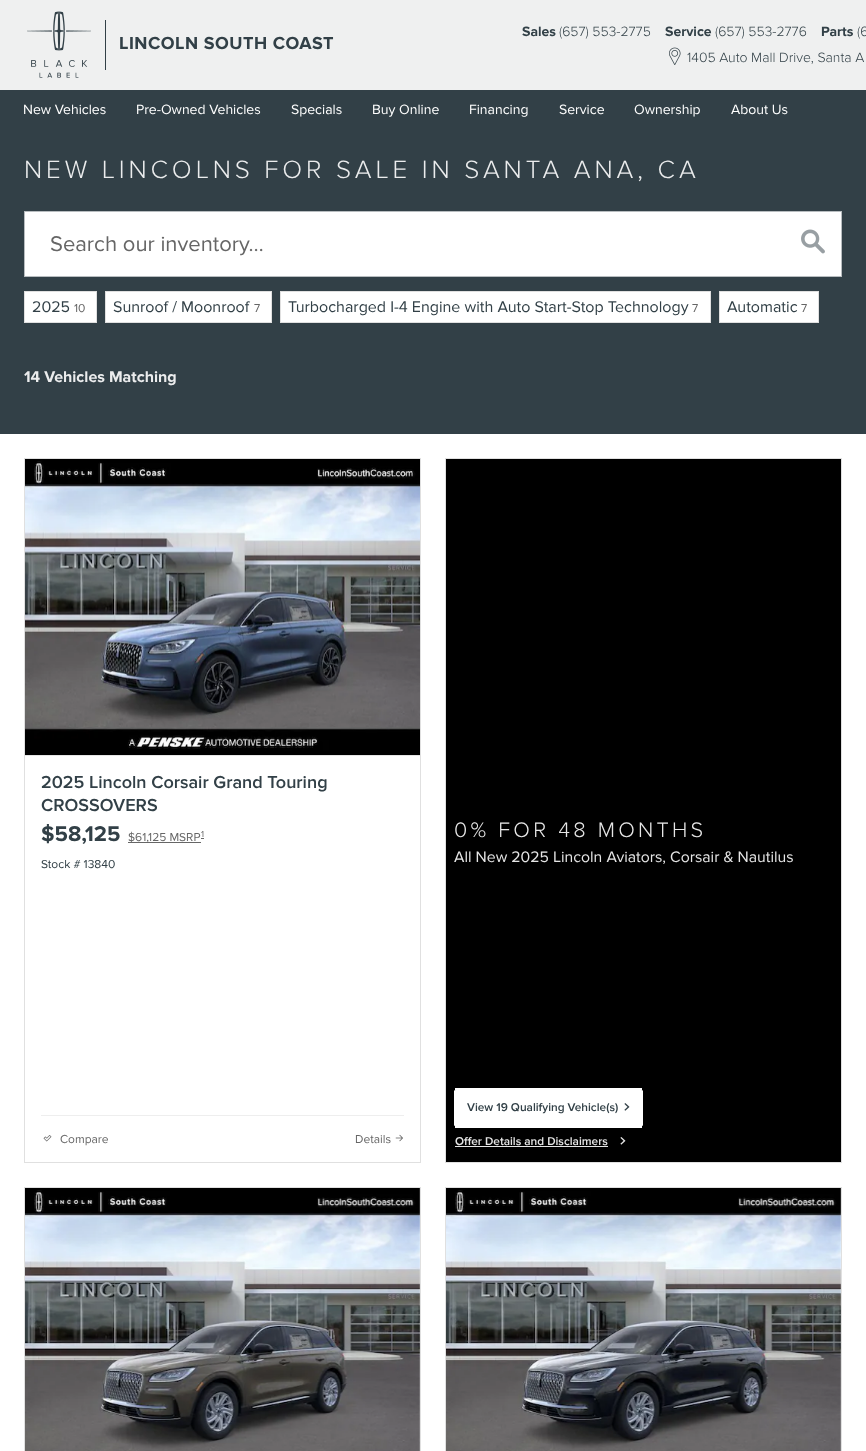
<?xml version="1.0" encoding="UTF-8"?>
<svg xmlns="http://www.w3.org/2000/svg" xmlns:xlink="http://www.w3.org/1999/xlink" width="866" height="1451">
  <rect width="100%" height="100%" fill="#ffffff" />
  <rect width="866" height="90" fill="#eff0f0" />
  <image x="27" y="11" width="64" height="67" xlink:href="image1.png" />
  <rect x="105" y="20" width="1" height="50" fill="#324047" />
  <image x="669" y="47" width="12" height="18" xlink:href="image2.png" />
  <rect y="90" width="866" height="344" fill="#324047" />
  <rect x="24.5" y="211.5" width="817" height="65" fill="#ffffff" stroke="#b8bdc0" />
  <image x="801" y="229" width="24" height="25" xlink:href="image3.png" />
  <rect x="24.5" y="291.5" width="72" height="31" fill="#ffffff" stroke="#e0e0e0" />
  <rect x="105.5" y="291.5" width="166" height="31" fill="#ffffff" stroke="#e0e0e0" />
  <rect x="280.5" y="291.5" width="430" height="31" fill="#ffffff" stroke="#e0e0e0" />
  <rect x="719.5" y="291.5" width="99" height="31" fill="#ffffff" stroke="#e0e0e0" />
  <rect x="24.5" y="458.5" width="396" height="704" fill="none" stroke="#e0e0e0" />
  <rect x="25" y="755" width="395" height="1" fill="#e6e6e6" />
  <image x="25" y="459" width="395" height="296" xlink:href="image4.png" />
  <rect x="128" y="842" width="73" height="1" fill="#666666" />
  <rect x="201" y="838" width="3" height="1" fill="#666666" />
  <rect x="41" y="1115" width="363" height="1" fill="#eeeeee" />
  <image x="43" y="1135" width="9" height="7" xlink:href="image5.png" />
  <image x="395" y="1134" width="8" height="8" xlink:href="image6.png" />
  <rect x="445.5" y="458.5" width="396" height="704" fill="none" stroke="#e0e0e0" />
  <rect x="446" y="459" width="395" height="703" fill="#000000" />
  <path d="M 457 1090 h 183 c 2 0 3 0 3 1 v 34 c 0 1 -1 1 -3 1 h -183 c -2 0 -3 0 -3 -1 v -34 c 0 -1 1 -1 3 -1 z" fill="#ffffff" />
  <rect x="455" y="1088" width="187" height="2" fill="#ffffff" />
  <rect x="455" y="1126" width="187" height="2" fill="#ffffff" />
  <image x="624" y="1103" width="6" height="8" xlink:href="image7.png" />
  <rect x="455" y="1146" width="153" height="1" fill="#e6e6e6" />
  <image x="620" y="1137" width="6" height="8" xlink:href="image8.png" />
  <rect x="24.5" y="1187.5" width="396" height="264" fill="none" stroke="#e0e0e0" />
  <image x="25" y="1188" width="395" height="263" xlink:href="image9.png" />
  <rect x="445.5" y="1187.5" width="396" height="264" fill="none" stroke="#e0e0e0" />
  <image x="446" y="1188" width="395" height="263" xlink:href="image10.png" />
  <text x="522" y="36" style="font-family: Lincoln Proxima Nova; font-size: 14px; font-weight: bold; fill: #324047">Sales</text>
  <text x="559" y="36" style="font-family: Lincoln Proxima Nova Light; font-size: 14px; font-weight: 300; fill: #324047">(657) 553-2775</text>
  <text x="665" y="36" style="font-family: Lincoln Proxima Nova; font-size: 14px; font-weight: bold; fill: #324047">Service</text>
  <text x="715" y="36" style="font-family: Lincoln Proxima Nova Light; font-size: 14px; font-weight: 300; fill: #324047">(657) 553-2776</text>
  <text x="821" y="36" style="font-family: Lincoln Proxima Nova; font-size: 14px; font-weight: bold; fill: #324047">Parts</text>
  <text x="857" y="36" style="font-family: Lincoln Proxima Nova Light; font-size: 14px; font-weight: 300; fill: #324047">(6</text>
  <text x="119" y="49" style="font-family: Lincoln Proxima Nova; font-size: 18px; font-weight: bold; letter-spacing: 0.5px; fill: #324047">LINCOLN SOUTH COAST</text>
  <text x="687" y="62" style="font-family: Lincoln Proxima Nova Light; font-size: 14px; font-weight: 300; fill: #324047">1405 Auto Mall Drive, Santa A</text>
  <text x="23" y="114" style="font-family: Lincoln Proxima Nova; font-size: 14px; fill: #ffffff">New Vehicles</text>
  <text x="136" y="114" style="font-family: Lincoln Proxima Nova; font-size: 14px; fill: #ffffff">Pre-Owned Vehicles</text>
  <text x="291" y="114" style="font-family: Lincoln Proxima Nova; font-size: 14px; fill: #ffffff">Specials</text>
  <text x="372" y="114" style="font-family: Lincoln Proxima Nova; font-size: 14px; fill: #ffffff">Buy Online</text>
  <text x="469" y="114" style="font-family: Lincoln Proxima Nova; font-size: 14px; fill: #ffffff">Financing</text>
  <text x="559" y="114" style="font-family: Lincoln Proxima Nova; font-size: 14px; fill: #ffffff">Service</text>
  <text x="634" y="114" style="font-family: Lincoln Proxima Nova; font-size: 14px; fill: #ffffff">Ownership</text>
  <text x="731" y="114" style="font-family: Lincoln Proxima Nova; font-size: 14px; fill: #ffffff">About Us</text>
  <text x="24" y="178" style="font-family: Lincoln Proxima Nova Light; font-size: 26px; font-weight: 300; letter-spacing: 3.9px; fill: #ebeced">NEW LINCOLNS FOR SALE IN SANTA ANA, CA</text>
  <text x="50" y="251" style="font-family: Lincoln Proxima Nova; font-size: 22px; fill: #666666">Search our inventory…</text>
  <text x="32" y="312" style="font-family: Lincoln Proxima Nova; font-size: 16px; fill: #324047">2025</text>
  <text x="74" y="312" style="font-family: Lincoln Proxima Nova; font-size: 12px; fill: #666666">10</text>
  <text x="113" y="312" style="font-family: Lincoln Proxima Nova; font-size: 16px; fill: #324047">Sunroof / Moonroof</text>
  <text x="254" y="312" style="font-family: Lincoln Proxima Nova; font-size: 12px; fill: #666666">7</text>
  <text x="288" y="312" style="font-family: Lincoln Proxima Nova; font-size: 16px; fill: #324047">Turbocharged I-4 Engine with Auto Start-Stop Technology</text>
  <text x="692" y="312" style="font-family: Lincoln Proxima Nova; font-size: 12px; fill: #666666">7</text>
  <text x="727" y="312" style="font-family: Lincoln Proxima Nova; font-size: 16px; fill: #324047">Automatic</text>
  <text x="801" y="312" style="font-family: Lincoln Proxima Nova; font-size: 12px; fill: #666666">7</text>
  <text x="24" y="382" style="font-family: Lincoln Proxima Nova; font-size: 16px; font-weight: bold; fill: #ebeced">14 Vehicles Matching</text>
  <text x="41" y="788" style="font-family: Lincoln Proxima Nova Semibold; font-size: 18px; font-weight: 600; fill: #324047">2025 Lincoln Corsair Grand Touring</text>
  <text x="41" y="811" style="font-family: Lincoln Proxima Nova Semibold; font-size: 18px; font-weight: 600; fill: #324047">CROSSOVERS</text>
  <text x="41" y="841" style="font-family: Lincoln Proxima Nova; font-size: 22px; font-weight: bold; fill: #324047">$58,125</text>
  <text x="128" y="841" style="font-family: Lincoln Proxima Nova; font-size: 12px; fill: #666666">$61,125 MSRP</text>
  <text x="201" y="837" style="font-family: Lincoln Proxima Nova; font-size: 9px; fill: #666666">1</text>
  <text x="41" y="868" style="font-family: Lincoln Proxima Nova; font-size: 12px; fill: #324047">Stock # 13840</text>
  <text x="60" y="1143" style="font-family: Lincoln Proxima Nova; font-size: 12px; fill: #666666">Compare</text>
  <text x="355" y="1143" style="font-family: Lincoln Proxima Nova; font-size: 12px; fill: #666666">Details</text>
  <text x="454" y="837" style="font-family: Lincoln Proxima Nova Light; font-size: 21.75px; font-weight: 300; letter-spacing: 3.25px; fill: #e6e6e6">0% FOR 48 MONTHS</text>
  <text x="454" y="862" style="font-family: Lincoln Proxima Nova; font-size: 15.8px; fill: #e6e6e6">All New 2025 Lincoln Aviators, Corsair &amp; Nautilus</text>
  <text x="467" y="1111" style="font-family: Lincoln Proxima Nova Semibold; font-size: 11.8px; font-weight: 600; fill: #324047">View 19 Qualifying Vehicle(s)</text>
  <text x="455" y="1145" style="font-family: Lincoln Proxima Nova Semibold; font-size: 11.8px; font-weight: 600; fill: #e6e6e6">Offer Details and Disclaimers</text>
</svg>
